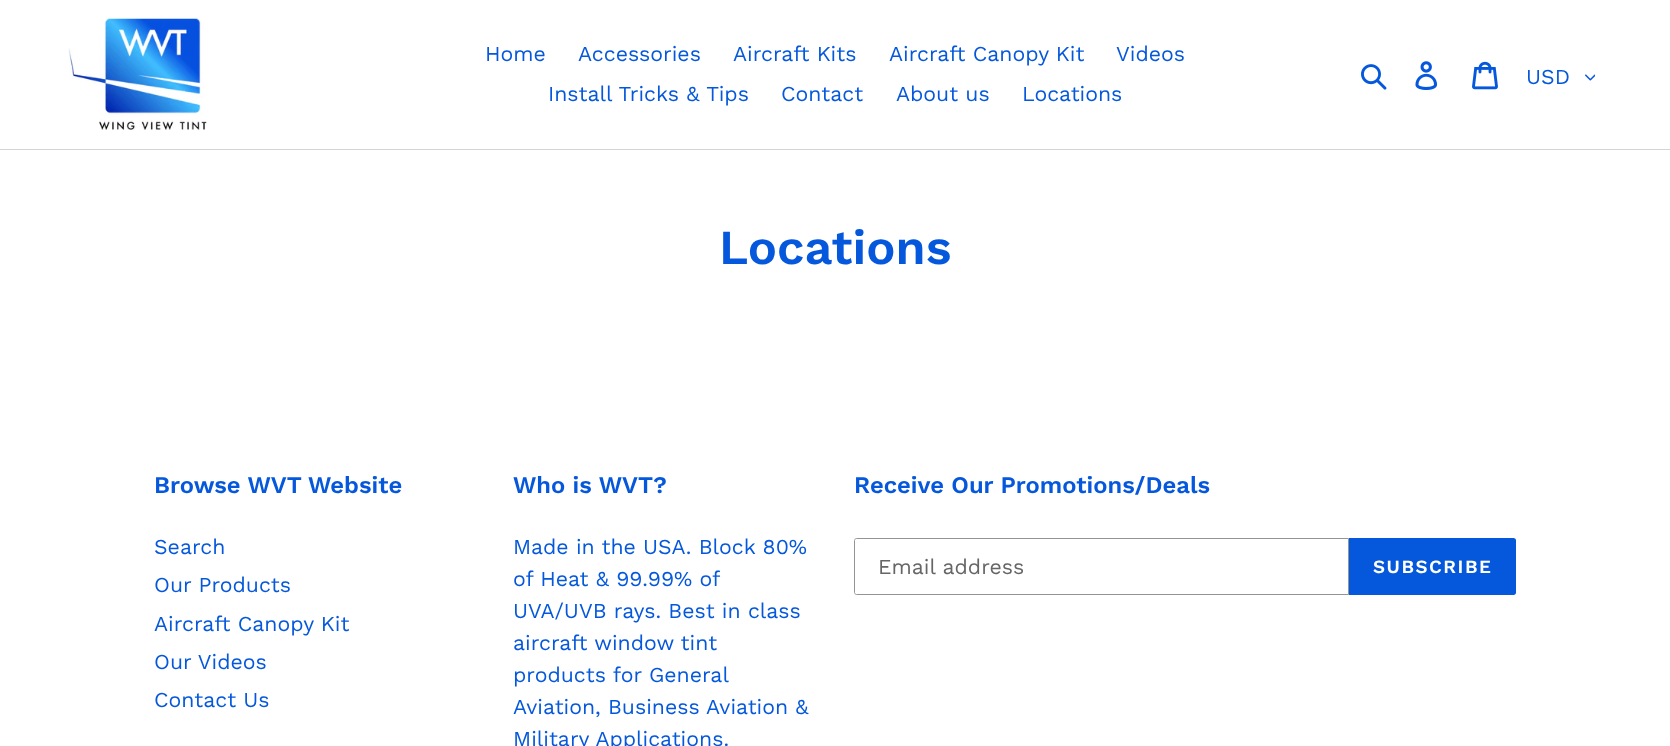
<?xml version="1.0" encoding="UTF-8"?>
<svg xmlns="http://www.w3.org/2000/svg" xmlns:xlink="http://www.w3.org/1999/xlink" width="1670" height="746">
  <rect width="100%" height="100%" fill="#ffffff" />
  <rect y="149" width="1670" height="1" fill="#d4d4d4" />
  <image x="68" y="18" width="139" height="112" xlink:href="image1.png" />
  <image x="1361" y="64" width="26" height="26" xlink:href="image2.png" />
  <image x="1415" y="61" width="23" height="29" xlink:href="image3.png" />
  <image x="1472" y="61" width="26" height="29" xlink:href="image4.png" />
  <image x="1585" y="74" width="10" height="7" xlink:href="image5.png" />
  <path d="M 856.5 538.5 h 492 v 56 h -492 c -1 0 -2 -1 -2 -2 v -52 c 0 -1 1 -2 2 -2 z" fill="none" stroke="#949494" />
  <path d="M 1349 538 h 164.5 c 1.5 0 2.5 1 2.5 2.5 v 52 c 0 1.5 -1 2.5 -2.5 2.5 h -164.5 z" fill="#0558dc" />
  <text x="485" y="61" style="font-family: Work Sans; font-size: 21.25px; fill: #0558dc">Home</text>
  <text x="578" y="61" style="font-family: Work Sans; font-size: 21.25px; fill: #0558dc">Accessories</text>
  <text x="733" y="61" style="font-family: Work Sans; font-size: 21.25px; fill: #0558dc">Aircraft Kits</text>
  <text x="889" y="61" style="font-family: Work Sans; font-size: 21.25px; fill: #0558dc">Aircraft Canopy Kit</text>
  <text x="1116" y="61" style="font-family: Work Sans; font-size: 21.25px; fill: #0558dc">Videos</text>
  <text x="548" y="101" style="font-family: Work Sans; font-size: 21.25px; fill: #0558dc">Install Tricks &amp; Tips</text>
  <text x="781" y="101" style="font-family: Work Sans; font-size: 21.25px; fill: #0558dc">Contact</text>
  <text x="896" y="101" style="font-family: Work Sans; font-size: 21.25px; fill: #0558dc">About us</text>
  <text x="1022" y="101" style="font-family: Work Sans; font-size: 21.25px; fill: #0558dc">Locations</text>
  <text x="1526" y="84" style="font-family: Work Sans; font-size: 21.25px; fill: #0558dc">USD</text>
  <text x="719" y="264" style="font-family: Work Sans; font-size: 48.75px; font-weight: 600; fill: #0558dc">Locations</text>
  <text x="154" y="493" style="font-family: Work Sans; font-size: 23.75px; font-weight: 600; fill: #0558dc">Browse WVT Website</text>
  <text x="154" y="554" style="font-family: Work Sans; font-size: 21.25px; fill: #0558dc">Search</text>
  <text x="154" y="592" style="font-family: Work Sans; font-size: 21.25px; fill: #0558dc">Our Products</text>
  <text x="154" y="631" style="font-family: Work Sans; font-size: 21.25px; fill: #0558dc">Aircraft Canopy Kit</text>
  <text x="154" y="669" style="font-family: Work Sans; font-size: 21.25px; fill: #0558dc">Our Videos</text>
  <text x="154" y="707" style="font-family: Work Sans; font-size: 21.25px; fill: #0558dc">Contact Us</text>
  <text x="513" y="493" style="font-family: Work Sans; font-size: 23.75px; font-weight: 600; fill: #0558dc">Who is WVT?</text>
  <text x="513" y="554" style="font-family: Work Sans; font-size: 21.25px; fill: #0558dc">Made in the USA. Block 80%</text>
  <text x="513" y="586" style="font-family: Work Sans; font-size: 21.25px; fill: #0558dc">of Heat &amp; 99.99% of</text>
  <text x="513" y="618" style="font-family: Work Sans; font-size: 21.25px; fill: #0558dc">UVA/UVB rays. Best in class</text>
  <text x="513" y="650" style="font-family: Work Sans; font-size: 21.25px; fill: #0558dc">aircraft window tint</text>
  <text x="513" y="682" style="font-family: Work Sans; font-size: 21.25px; fill: #0558dc">products for General</text>
  <text x="513" y="714" style="font-family: Work Sans; font-size: 21.25px; fill: #0558dc">Aviation, Business Aviation &amp;</text>
  <text x="513" y="746" style="font-family: Work Sans; font-size: 21.25px; fill: #0558dc">Military Applications.</text>
  <text x="854" y="493" style="font-family: Work Sans; font-size: 23.75px; font-weight: 600; fill: #0558dc">Receive Our Promotions/Deals</text>
  <text x="878" y="574" style="font-family: Work Sans; font-size: 21.25px; fill: #666666">Email address</text>
  <text x="1373" y="573" style="font-family: Work Sans; font-size: 18.75px; font-weight: 600; letter-spacing: 1.5px; fill: #ffffff">SUBSCRIBE</text>
</svg>
